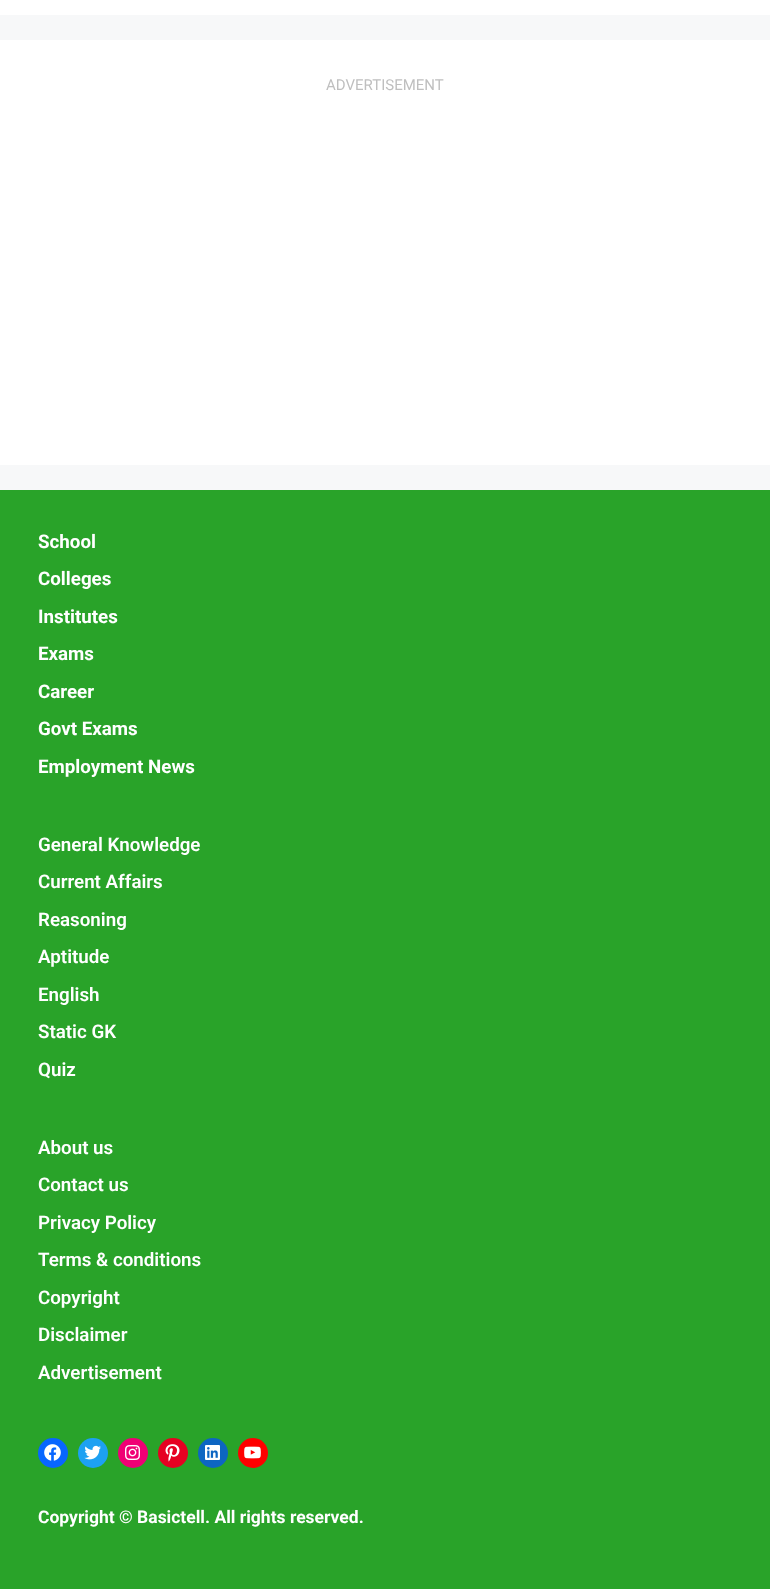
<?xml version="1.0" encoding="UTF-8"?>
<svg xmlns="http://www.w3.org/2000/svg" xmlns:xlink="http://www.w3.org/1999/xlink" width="770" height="1589">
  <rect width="100%" height="100%" fill="#f7f8f9" />
  <rect width="770" height="15" fill="#ffffff" />
  <rect y="40" width="770" height="425" fill="#ffffff" />
  <rect y="490" width="770" height="1099" fill="#29a329" />
  <circle cx="53" cy="1453" r="15" fill="#0866ff" />
  <image x="44" y="1444" width="17" height="17" xlink:href="image1.png" />
  <circle cx="93" cy="1453" r="15" fill="#1da1f2" />
  <image x="84" y="1445" width="17" height="15" xlink:href="image2.png" />
  <circle cx="133" cy="1453" r="15" fill="#f00075" />
  <image x="125" y="1445" width="15" height="15" xlink:href="image3.png" />
  <circle cx="173" cy="1453" r="15" fill="#e60122" />
  <image x="165" y="1444" width="15" height="18" xlink:href="image4.png" />
  <circle cx="213" cy="1453" r="15" fill="#0d66c2" />
  <image x="205" y="1445" width="15" height="15" xlink:href="image5.png" />
  <circle cx="253" cy="1453" r="15" fill="#ff0000" />
  <image x="244" y="1446" width="17" height="13" xlink:href="image6.png" />
  <text x="326" y="90" style="font-family: Roboto; font-size: 15px; fill: #bfbfbf">ADVERTISEMENT</text>
  <text x="38" y="548" style="font-family: Roboto; font-size: 18.75px; font-weight: bold; fill: #ffffff">School</text>
  <text x="38" y="585" style="font-family: Roboto; font-size: 18.75px; font-weight: bold; fill: #ffffff">Colleges</text>
  <text x="38" y="623" style="font-family: Roboto; font-size: 18.75px; font-weight: bold; fill: #ffffff">Institutes</text>
  <text x="38" y="660" style="font-family: Roboto; font-size: 18.75px; font-weight: bold; fill: #ffffff">Exams</text>
  <text x="38" y="698" style="font-family: Roboto; font-size: 18.75px; font-weight: bold; fill: #ffffff">Career</text>
  <text x="38" y="735" style="font-family: Roboto; font-size: 18.75px; font-weight: bold; fill: #ffffff">Govt Exams</text>
  <text x="38" y="773" style="font-family: Roboto; font-size: 18.75px; font-weight: bold; fill: #ffffff">Employment News</text>
  <text x="38" y="851" style="font-family: Roboto; font-size: 18.75px; font-weight: 600; fill: #ffffff">General Knowledge</text>
  <text x="38" y="888" style="font-family: Roboto; font-size: 18.75px; font-weight: 600; fill: #ffffff">Current Affairs</text>
  <text x="38" y="926" style="font-family: Roboto; font-size: 18.75px; font-weight: 600; fill: #ffffff">Reasoning</text>
  <text x="38" y="963" style="font-family: Roboto; font-size: 18.75px; font-weight: 600; fill: #ffffff">Aptitude</text>
  <text x="38" y="1001" style="font-family: Roboto; font-size: 18.75px; font-weight: 600; fill: #ffffff">English</text>
  <text x="38" y="1038" style="font-family: Roboto; font-size: 18.75px; font-weight: 600; fill: #ffffff">Static GK</text>
  <text x="38" y="1076" style="font-family: Roboto; font-size: 18.75px; font-weight: 600; fill: #ffffff">Quiz</text>
  <text x="38" y="1154" style="font-family: Roboto; font-size: 18.75px; font-weight: 600; fill: #ffffff">About us</text>
  <text x="38" y="1191" style="font-family: Roboto; font-size: 18.75px; font-weight: 600; fill: #ffffff">Contact us</text>
  <text x="38" y="1229" style="font-family: Roboto; font-size: 18.75px; font-weight: 600; fill: #ffffff">Privacy Policy</text>
  <text x="38" y="1266" style="font-family: Roboto; font-size: 18.75px; font-weight: 600; fill: #ffffff">Terms &amp; conditions</text>
  <text x="38" y="1304" style="font-family: Roboto; font-size: 18.75px; font-weight: 600; fill: #ffffff">Copyright</text>
  <text x="38" y="1341" style="font-family: Roboto; font-size: 18.75px; font-weight: 600; fill: #ffffff">Disclaimer</text>
  <text x="38" y="1379" style="font-family: Roboto; font-size: 18.75px; font-weight: 600; fill: #ffffff">Advertisement</text>
  <text x="38" y="1523" style="font-family: Roboto; font-size: 17.5px; font-weight: bold; fill: #ffffff">Copyright © Basictell. All rights reserved.</text>
</svg>
